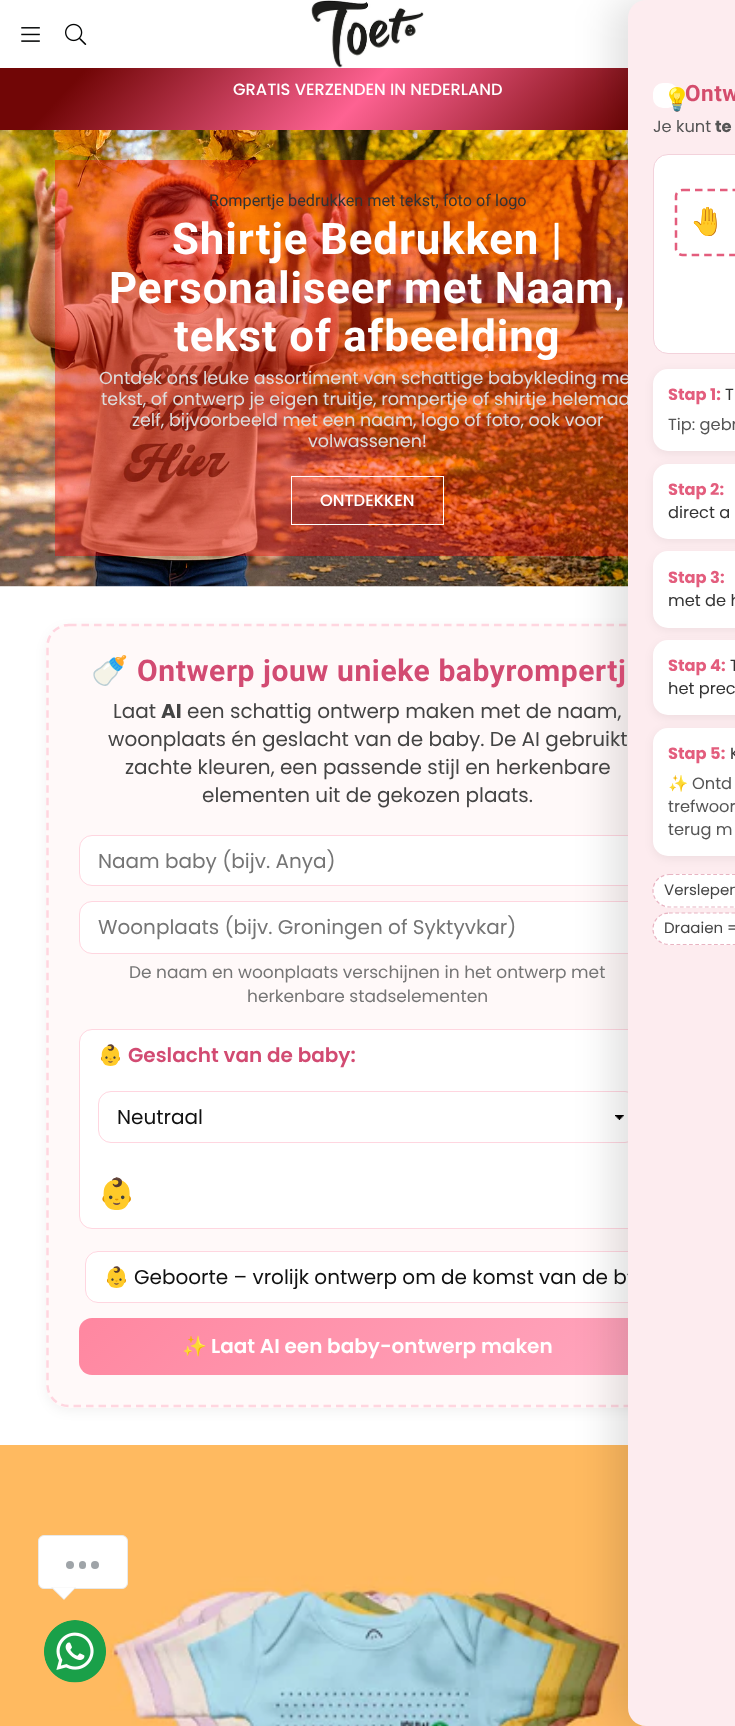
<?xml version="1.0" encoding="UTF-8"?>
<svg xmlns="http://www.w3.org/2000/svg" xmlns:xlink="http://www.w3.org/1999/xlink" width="735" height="1726">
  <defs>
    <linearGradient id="g1" gradientUnits="userSpaceOnUse" x1="155" y1="-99" x2="580" y2="297"><stop offset="0.11" stop-color="#710606" /><stop offset="0.49" stop-color="#fe6292" /><stop offset="0.86" stop-color="#710606" /></linearGradient>
    <linearGradient id="g2" gradientUnits="userSpaceOnUse" x1="209" y1="1188" x2="526" y2="1505"><stop offset="0" stop-color="#ff87a0" /><stop offset="1" stop-color="#ffa6be" /></linearGradient>
    <clipPath id="clip1"><rect x="104" y="1265" width="527" height="24" /></clipPath>
  </defs>
  <rect width="100%" height="100%" fill="#ffffff" />
  <image x="21" y="27" width="19" height="15" xlink:href="image1.png" />
  <image x="65" y="23" width="22" height="22" xlink:href="image2.png" />
  <image x="311" y="0" width="113" height="68" xlink:href="image3.png" />
  <rect y="68" width="628" height="62" fill="url(#g1)" />
  <image x="0" y="130" width="628" height="457" xlink:href="image4.png" />
  <rect x="55" y="160" width="573" height="396" fill="#f90505" fill-opacity="0.4" />
  <rect x="46" y="628" width="643" height="783" rx="23" fill="#000000" fill-opacity="0.05" filter="blur(6px)" />
  <rect x="46" y="624" width="643" height="784" rx="23" fill="#fff9f9" />
  <path d="M 69 625 h 597 c 12 0 21.5 9.5 21.5 21 v 739 c 0 11.5 -9.5 21 -21.5 21 h -597 c -12 0 -21.5 -9.5 -21.5 -21 v -739 c 0 -11.5 9.5 -21 21.5 -21 z" fill="none" stroke="#ffd6e0" stroke-width="2.5" stroke-dasharray="7.5 5" />
  <rect x="79.5" y="835.5" width="576" height="50" rx="12.5" fill="#ffffff" stroke="#ffd6e0" />
  <rect x="79.5" y="901.5" width="576" height="52" rx="12.5" fill="#ffffff" stroke="#ffd6e0" />
  <rect x="79.5" y="1029.5" width="576" height="199" rx="12.5" fill="#ffffff" stroke="#ffd6e0" />
  <image x="615" y="1115" width="9" height="5" xlink:href="image5.png" />
  <rect x="98.5" y="1091.5" width="539" height="51" rx="12.5" fill="none" stroke="#ffd6e0" />
  <rect x="85" y="1251" width="565" height="52" rx="13" fill="#ffffff" />
  <image x="627" y="1273" width="1" height="3" xlink:href="image6.png" />
  <rect x="85.5" y="1251.5" width="564" height="51" rx="12.5" fill="none" stroke="#ffd6e0" />
  <rect x="79" y="1318" width="577" height="57" rx="13" fill="url(#g2)" />
  <image x="0" y="1445" width="646" height="281" xlink:href="image7.png" />
  <rect x="613" width="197" height="1726" rx="18" fill="#000000" fill-opacity="0.12" filter="blur(19px)" />
  <rect x="291.5" y="476.5" width="152" height="48" fill="none" stroke="#ffffff" />
  <rect x="38.5" y="1535.5" width="89" height="53" rx="5.5" fill="#ffffff" stroke="#e9e9e9" />
  <circle cx="70" cy="1565" r="4" fill="#9fa4a8" />
  <rect x="79" y="1561" width="7" height="8" rx="3.5" fill="#9fa4a8" />
  <circle cx="95" cy="1565" r="4" fill="#9fa4a8" />
  <path d="M 51 1587.5 h 25 l -12 12.5 z" fill="#e9e9e9" />
  <path d="M 52.5 1587.5 h 22.5 l -11 11.5 z" fill="#ffffff" />
  <image x="44" y="1620" width="62" height="63" xlink:href="image8.png" />
  <text x="233" y="95" style="font-family: Poppins; font-size: 16.25px; font-weight: 500; fill: #ffffff">GRATIS VERZENDEN IN NEDERLAND</text>
  <text x="209" y="206" style="font-family: Roboto; font-size: 16.25px; fill: #333333">Rompertje bedrukken met tekst, foto of logo</text>
  <text x="172" y="254" style="font-family: Roboto; font-size: 43.75px; font-weight: bold; letter-spacing: 0.9px; fill: #ffffff">Shirtje Bedrukken |</text>
  <text x="109" y="303" style="font-family: Roboto; font-size: 43.75px; font-weight: bold; letter-spacing: 0.9px; fill: #ffffff">Personaliseer met Naam,</text>
  <text x="174" y="351" style="font-family: Roboto; font-size: 43.75px; font-weight: bold; letter-spacing: 0.9px; fill: #ffffff">tekst of afbeelding</text>
  <text x="99" y="384" style="font-family: Poppins; font-size: 17.5px; fill: #dddddd">Ontdek ons leuke assortiment van schattige babykleding me</text>
  <text x="101" y="405" style="font-family: Poppins; font-size: 17.5px; fill: #dddddd">tekst, of ontwerp je eigen truitje, rompertje of shirtje helemaa</text>
  <path d="M 646 0 h 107 v 1726 h -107 c -10 0 -18 -8 -18 -18 v -1690 c 0 -10 8 -18 18 -18 z" fill="#fdecef" />
  <rect x="653.5" y="154.5" width="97" height="199" rx="14.5" fill="#ffffff" stroke="#f3d2db" />
  <path d="M 682.5 190 h 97.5 c 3.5 0 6 3 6 6 v 53 c 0 3 -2.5 6 -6 6 h -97.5 c -3.5 0 -6.5 -3 -6.5 -6 v -53 c 0 -3 3 -6 6.5 -6 z" fill="none" stroke="#e35d7d" stroke-width="2.5" stroke-dasharray="7.5 5" />
  <text x="690" y="231" style="font-family: Noto Color Emoji; font-size: 28px; fill: #444444">🤚</text>
  <rect x="653" y="913" width="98" height="32" rx="16" fill="#ffffff" />
  <path d="M 669 913 h 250 c 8.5 0 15.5 7 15.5 16 c 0 8.5 -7 15.5 -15.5 15.5 h -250 c -9 0 -16 -7 -16 -15.5 c 0 -9 7 -16 16 -16 z" fill="none" stroke="#e8b4c2" stroke-width="1.2" stroke-dasharray="3.75 2.5" />
  <text x="664" y="933" style="font-family: Poppins; font-size: 15px; fill: #444444">Draaien =</text>
  <rect x="653" y="371" width="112" height="83" rx="15" fill="#000000" fill-opacity="0.06" filter="blur(5px)" />
  <rect x="653" y="369" width="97" height="82" rx="15" fill="#ffffff" />
  <rect x="653" y="466" width="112" height="75" rx="15" fill="#000000" fill-opacity="0.06" filter="blur(5px)" />
  <rect x="653" y="464" width="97" height="75" rx="15" fill="#ffffff" />
  <rect x="653" y="554" width="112" height="76" rx="15" fill="#000000" fill-opacity="0.06" filter="blur(5px)" />
  <rect x="653" y="551" width="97" height="77" rx="15" fill="#ffffff" />
  <rect x="653" y="643" width="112" height="75" rx="15" fill="#000000" fill-opacity="0.06" filter="blur(5px)" />
  <rect x="653" y="640" width="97" height="75" rx="15" fill="#ffffff" />
  <rect x="653" y="730" width="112" height="129" rx="15" fill="#000000" fill-opacity="0.06" filter="blur(5px)" />
  <rect x="653" y="874" width="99" height="34" rx="17" fill="#ffffff" />
  <path d="M 669.5 874.5 h 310 c 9 0 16 7 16 16 c 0 9 -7 16.5 -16 16.5 h -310 c -9 0 -16.5 -7.5 -16.5 -16.5 c 0 -9 7.5 -16 16.5 -16 z" fill="none" stroke="#e8b4c2" stroke-width="1.2" stroke-dasharray="3.75 2.5" />
  <text x="664" y="895" style="font-family: Poppins; font-size: 15px; fill: #444444">Verslepen</text>
  <rect x="653" y="728" width="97" height="128" rx="15" fill="#ffffff" />
  <text x="668" y="835" style="font-family: Poppins; font-size: 16.25px; fill: #555555">terug m</text>
  <text x="668" y="812" style="font-family: Poppins; font-size: 16.25px; fill: #555555">trefwoor</text>
  <text x="692" y="789" style="font-family: Poppins; font-size: 16.25px; fill: #555555">Ontd</text>
  <text x="668" y="789" style="font-family: Noto Color Emoji; font-size: 16.25px; fill: #555555">✨</text>
  <text x="730" y="759" style="font-family: Poppins; font-size: 16.25px; fill: #333333">K</text>
  <text x="668" y="759" style="font-family: Poppins; font-size: 16.25px; font-weight: bold; fill: #e35d7d">Stap 5:</text>
  <text x="668" y="694" style="font-family: Poppins; font-size: 16.25px; fill: #333333">het prec</text>
  <text x="730" y="671" style="font-family: Poppins; font-size: 16.25px; fill: #333333">T</text>
  <text x="668" y="671" style="font-family: Poppins; font-size: 16.25px; font-weight: bold; fill: #e35d7d">Stap 4:</text>
  <text x="668" y="606" style="font-family: Poppins; font-size: 16.25px; fill: #333333">met de h</text>
  <text x="668" y="583" style="font-family: Poppins; font-size: 16.25px; font-weight: bold; fill: #e35d7d">Stap 3:</text>
  <text x="668" y="518" style="font-family: Poppins; font-size: 16.25px; fill: #333333">direct a</text>
  <text x="668" y="495" style="font-family: Poppins; font-size: 16.25px; font-weight: bold; fill: #e35d7d">Stap 2:</text>
  <text x="668" y="430" style="font-family: Poppins; font-size: 16.25px; fill: #555555">Tip: gebr</text>
  <text x="725" y="400" style="font-family: Poppins; font-size: 16.25px; fill: #333333">T</text>
  <text x="668" y="400" style="font-family: Poppins; font-size: 16.25px; font-weight: bold; fill: #e35d7d">Stap 1:</text>
  <text x="715" y="132" style="font-family: Poppins; font-size: 16.25px; font-weight: bold; fill: #555555">te</text>
  <text x="653" y="132" style="font-family: Poppins; font-size: 16.25px; fill: #555555">Je kunt</text>
  <rect x="653" y="83" width="25" height="25" rx="10" fill="#ffffff" />
  <text x="663" y="107" style="font-family: Noto Color Emoji; font-size: 22.5px; font-weight: bold; letter-spacing: 0.5px; fill: #d44c6c">💡</text>
  <text x="685" y="101" style="font-family: Roboto; font-size: 22.5px; font-weight: bold; letter-spacing: 0.5px; fill: #d44c6c">Ontw</text>
  <text x="132" y="426" style="font-family: Poppins; font-size: 17.5px; fill: #dddddd">zelf, bijvoorbeeld met een naam, logo of foto, ook voor</text>
  <text x="308" y="447" style="font-family: Poppins; font-size: 17.5px; fill: #dddddd">volwassenen!</text>
  <text x="320" y="506" style="font-family: Poppins; font-size: 16.25px; font-weight: 500; fill: #ffffff">ONTDEKKEN</text>
  <text x="91" y="681" style="font-family: Noto Color Emoji; font-size: 30px; font-weight: bold; letter-spacing: 0.6px; fill: #d24b72">🍼</text>
  <text x="137" y="681" style="font-family: Roboto; font-size: 30px; font-weight: bold; letter-spacing: 0.6px; fill: #d24b72">Ontwerp jouw unieke babyrompertj</text>
  <text x="113" y="718" style="font-family: Poppins; font-size: 20px; fill: #444444">Laat</text>
  <text x="161" y="718" style="font-family: Poppins; font-size: 20px; font-weight: bold; fill: #444444">AI</text>
  <text x="187" y="718" style="font-family: Poppins; font-size: 20px; fill: #444444">een schattig ontwerp maken met de naam,</text>
  <text x="108" y="746" style="font-family: Poppins; font-size: 20px; fill: #444444">woonplaats én geslacht van de baby. De AI gebruikt</text>
  <text x="125" y="774" style="font-family: Poppins; font-size: 20px; fill: #444444">zachte kleuren, een passende stijl en herkenbare</text>
  <text x="202" y="802" style="font-family: Poppins; font-size: 20px; fill: #444444">elementen uit de gekozen plaats.</text>
  <text x="98" y="868" style="font-family: Poppins; font-size: 20px; fill: #757575">Naam baby (bijv. Anya)</text>
  <text x="98" y="934" style="font-family: Poppins; font-size: 20px; fill: #757575">Woonplaats (bijv. Groningen of Syktyvkar)</text>
  <text x="129" y="978" style="font-family: Poppins; font-size: 17px; fill: #757575">De naam en woonplaats verschijnen in het ontwerp met</text>
  <text x="247" y="1002" style="font-family: Poppins; font-size: 17px; fill: #757575">herkenbare stadselementen</text>
  <text x="98" y="1062" style="font-family: Noto Color Emoji; font-size: 20px; font-weight: bold; fill: #d24b72">👶</text>
  <text x="128" y="1062" style="font-family: Poppins; font-size: 20px; font-weight: 600; fill: #d24b72">Geslacht van de baby:</text>
  <text x="117" y="1124" style="font-family: Poppins; font-size: 20px; fill: #111111">Neutraal</text>
  <text x="98" y="1204" style="font-family: Noto Color Emoji; font-size: 30px; fill: #444444">👶</text>
  <g clip-path="url(#clip1)">
    <text x="104" y="1284" style="font-family: Noto Color Emoji; font-size: 20px; fill: #111111">👶</text>
    <text x="134" y="1284" style="font-family: Poppins; font-size: 20px; fill: #111111">Geboorte – vrolijk ontwerp om de komst van de b</text>
  </g>
  <text x="182" y="1353" style="font-family: Noto Color Emoji; font-size: 20px; font-weight: bold; fill: #ffffff">✨</text>
  <text x="211" y="1353" style="font-family: Poppins; font-size: 20px; font-weight: 600; fill: #ffffff">Laat AI een baby-ontwerp maken</text>
</svg>
